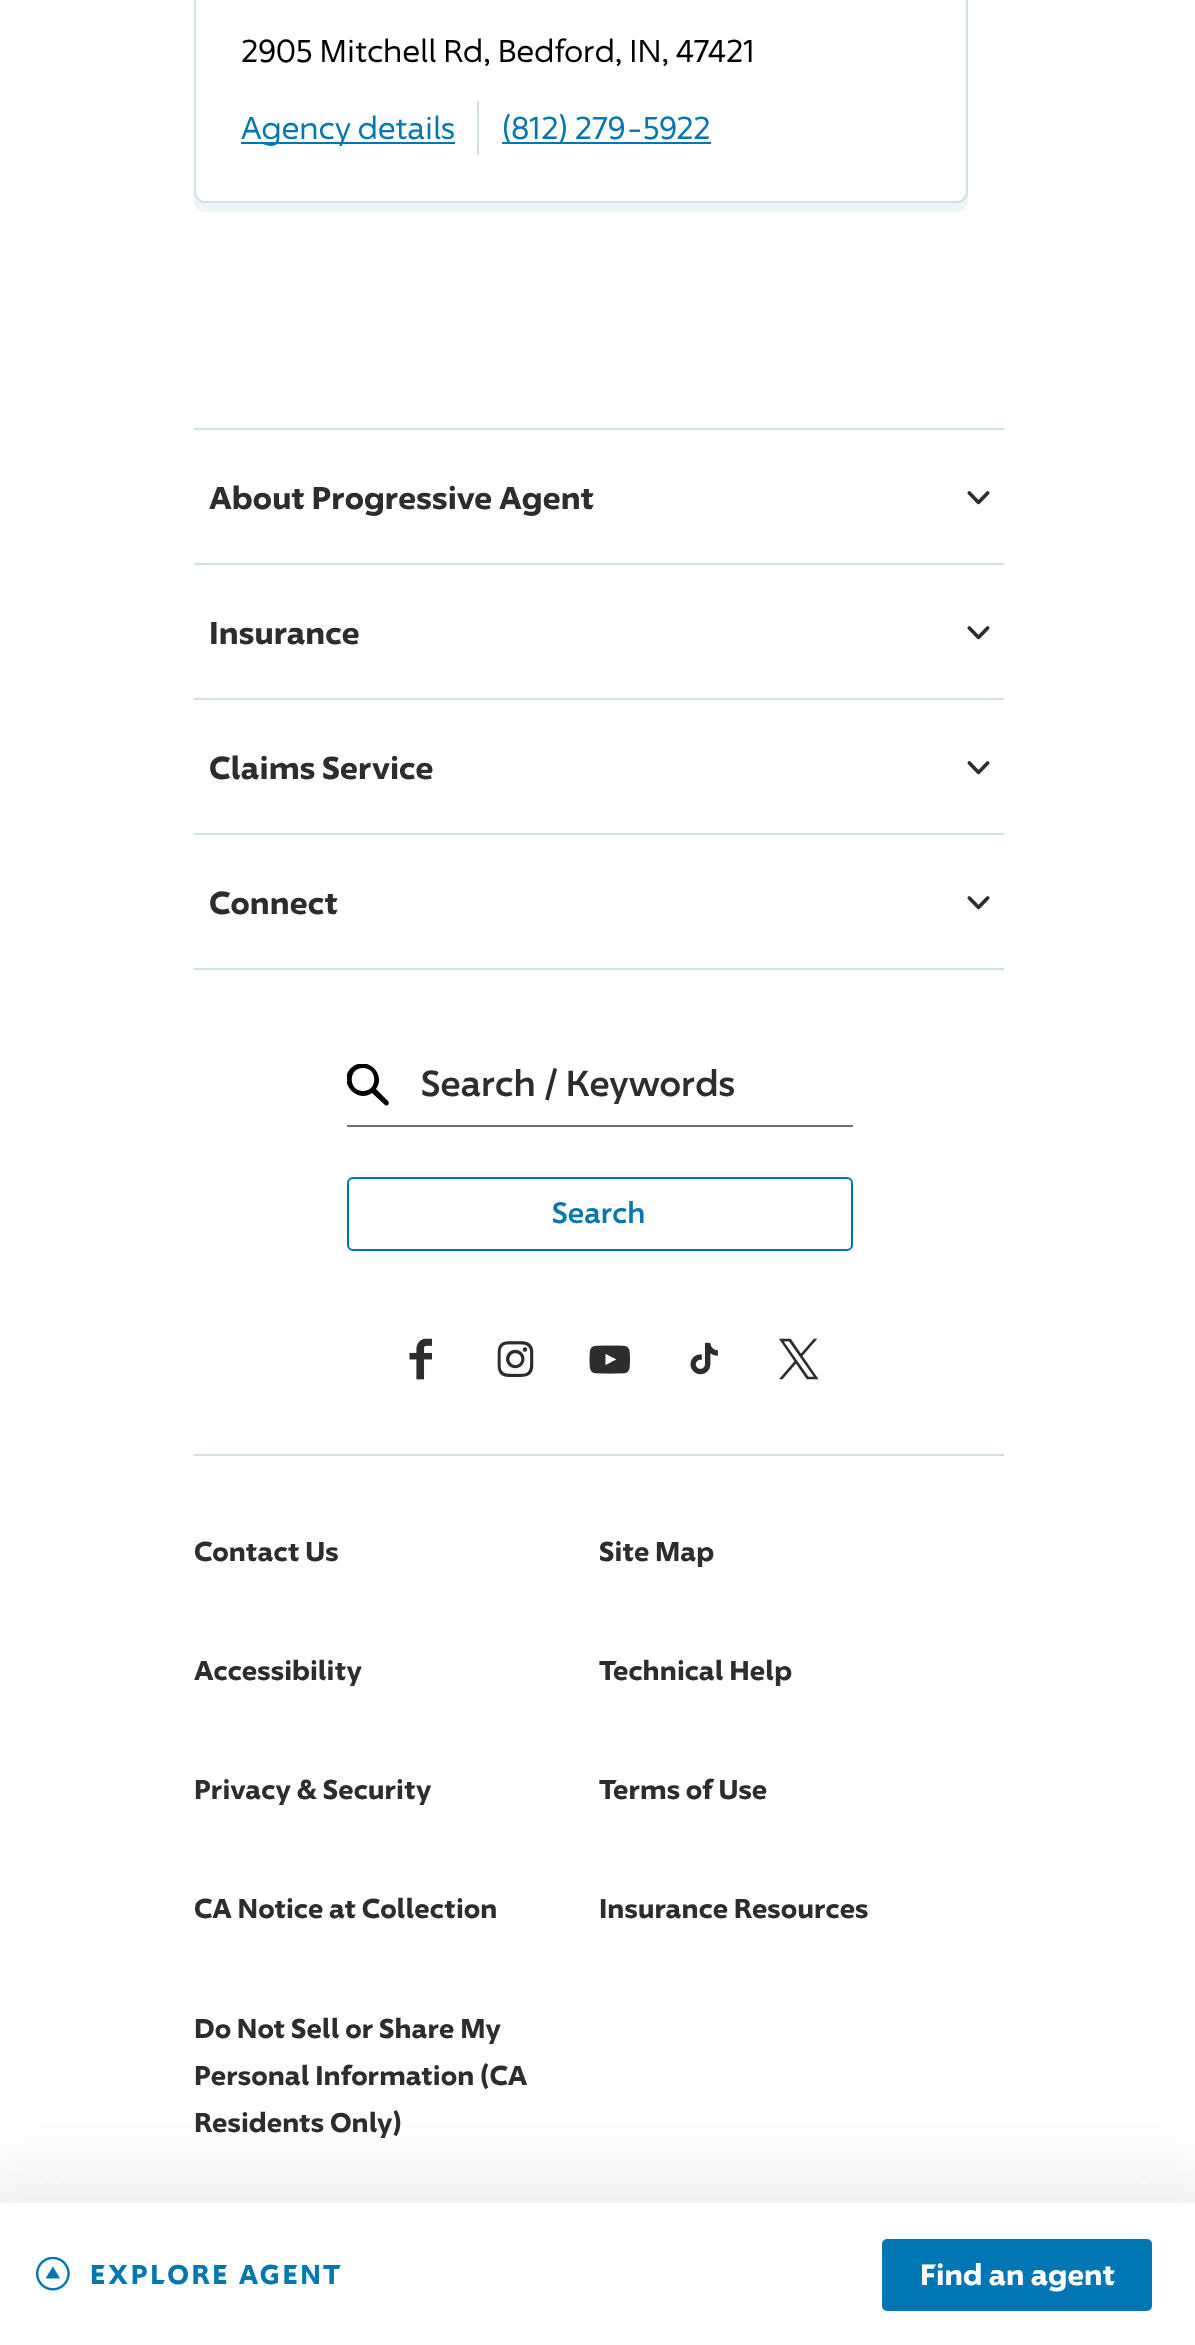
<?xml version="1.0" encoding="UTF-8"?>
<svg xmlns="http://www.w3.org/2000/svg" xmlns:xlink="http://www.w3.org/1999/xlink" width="1195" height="2345">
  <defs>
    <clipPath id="clip1"><rect x="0" y="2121" width="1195" height="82" /></clipPath>
    <clipPath id="clip2"><rect x="347" y="1064" width="42" height="43" /></clipPath>
  </defs>
  <rect width="100%" height="100%" fill="#ffffff" />
  <path d="M 194 195 v 6 c 0 6 5 11 11 11 h 752 c 6 0 11 -5 11 -11 v -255 v -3 v 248 c 0 6 -6 11 -12 11 h -751 c -5 0 -10 -3 -11 -7 z" fill="#eff5f6" />
  <rect x="195" y="-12" width="772" height="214" rx="10" fill="#ffffff" stroke="#d1e2e5" stroke-width="2" />
  <rect x="241" y="142" width="214" height="2" fill="#0077b3" />
  <rect x="477" y="101" width="2" height="54" fill="#d1e2e5" />
  <rect x="502" y="142" width="209" height="2" fill="#0077b3" />
  <g clip-path="url(#clip1)">
    <rect x="-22" y="2180" width="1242" height="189" fill="#cccccc" fill-opacity="0.4" filter="blur(36px)" />
  </g>
  <image x="36" y="2257" width="34" height="34" xlink:href="image1.png" />
  <rect x="883" y="2240" width="268" height="70" rx="4" fill="#0077b3" stroke="#0077b3" stroke-width="2" />
  <rect x="194" y="428" width="810" height="2" fill="#d1e2e5" />
  <image x="967" y="491" width="23" height="14" xlink:href="image2.png" />
  <rect x="194" y="563" width="810" height="2" fill="#d1e2e5" />
  <image x="967" y="626" width="23" height="14" xlink:href="image2.png" />
  <rect x="194" y="698" width="810" height="2" fill="#d1e2e5" />
  <image x="967" y="761" width="23" height="14" xlink:href="image2.png" />
  <rect x="194" y="833" width="810" height="2" fill="#d1e2e5" />
  <image x="967" y="896" width="23" height="14" xlink:href="image2.png" />
  <rect x="194" y="968" width="810" height="2" fill="#d1e2e5" />
  <rect x="194" y="1454" width="810" height="2" fill="#d1e2e5" />
  <g clip-path="url(#clip2)">
    <path d="M 388 1101 l -12 -12 c 11 -15 -10 -35 -25 -21 c -14 14 6 36 21 25 l 13 12 c 3 2 5 -2 3 -4 z m -25 -10 c -15 0 -15 -23 0 -23 c 15 0 15 23 0 23 z" fill="#000000" />
  </g>
  <rect x="347" y="1125" width="506" height="2" fill="#707070" />
  <rect x="348" y="1178" width="504" height="72" rx="5" fill="none" stroke="#0077b3" stroke-width="2" />
  <image x="409" y="1338" width="23" height="42" xlink:href="image3.png" />
  <image x="497" y="1341" width="37" height="36" xlink:href="image4.png" />
  <image x="589" y="1345" width="41" height="29" xlink:href="image5.png" />
  <image x="690" y="1342" width="28" height="33" xlink:href="image6.png" />
  <image x="779" y="1338" width="40" height="42" xlink:href="image7.png" />
  <text x="241" y="62" style="font-family: '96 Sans'; font-size: 31.5px; fill: #000000">2905 Mitchell Rd, Bedford, IN, 47421</text>
  <text x="241" y="139" style="font-family: '96 Sans'; font-size: 31.5px; fill: #0077b3">Agency details</text>
  <text x="502" y="139" style="font-family: '96 Sans'; font-size: 31.5px; fill: #0077b3">(812) 279-5922</text>
  <text x="90" y="2284" style="font-family: '96 Sans'; font-size: 27px; font-weight: bold; letter-spacing: 2.75px; fill: #0077b3">EXPLORE AGENT</text>
  <text x="920" y="2285" style="font-family: '96 Sans'; font-size: 29.25px; font-weight: bold; fill: #ffffff">Find an agent</text>
  <text x="209" y="509" style="font-family: '96 Sans'; font-size: 31.5px; font-weight: bold; fill: #2d2d2d">About Progressive Agent</text>
  <text x="209" y="644" style="font-family: '96 Sans'; font-size: 31.5px; font-weight: bold; fill: #2d2d2d">Insurance</text>
  <text x="209" y="779" style="font-family: '96 Sans'; font-size: 31.5px; font-weight: bold; fill: #2d2d2d">Claims Service</text>
  <text x="209" y="914" style="font-family: '96 Sans'; font-size: 31.5px; font-weight: bold; fill: #2d2d2d">Connect</text>
  <text x="421" y="1096" style="font-family: '96 Sans'; font-size: 36px; font-weight: 500; fill: #2d2d2d">Search / Keywords</text>
  <text x="552" y="1223" style="font-family: '96 Sans'; font-size: 29.25px; font-weight: 500; fill: #0077b3">Search</text>
  <text x="194" y="1561" style="font-family: '96 Sans'; font-size: 27px; font-weight: bold; fill: #2d2d2d">Contact Us</text>
  <text x="599" y="1561" style="font-family: '96 Sans'; font-size: 27px; font-weight: bold; fill: #2d2d2d">Site Map</text>
  <text x="194" y="1680" style="font-family: '96 Sans'; font-size: 27px; font-weight: bold; fill: #2d2d2d">Accessibility</text>
  <text x="599" y="1680" style="font-family: '96 Sans'; font-size: 27px; font-weight: bold; fill: #2d2d2d">Technical Help</text>
  <text x="194" y="1799" style="font-family: '96 Sans'; font-size: 27px; font-weight: bold; fill: #2d2d2d">Privacy &amp; Security</text>
  <text x="599" y="1799" style="font-family: '96 Sans'; font-size: 27px; font-weight: bold; fill: #2d2d2d">Terms of Use</text>
  <text x="194" y="1918" style="font-family: '96 Sans'; font-size: 27px; font-weight: bold; fill: #2d2d2d">CA Notice at Collection</text>
  <text x="599" y="1918" style="font-family: '96 Sans'; font-size: 27px; font-weight: bold; fill: #2d2d2d">Insurance Resources</text>
  <text x="194" y="2038" style="font-family: '96 Sans'; font-size: 27px; font-weight: bold; fill: #2d2d2d">Do Not Sell or Share My</text>
  <text x="194" y="2085" style="font-family: '96 Sans'; font-size: 27px; font-weight: bold; fill: #2d2d2d">Personal Information (CA</text>
  <text x="194" y="2132" style="font-family: '96 Sans'; font-size: 27px; font-weight: bold; fill: #2d2d2d">Residents Only)</text>
</svg>
